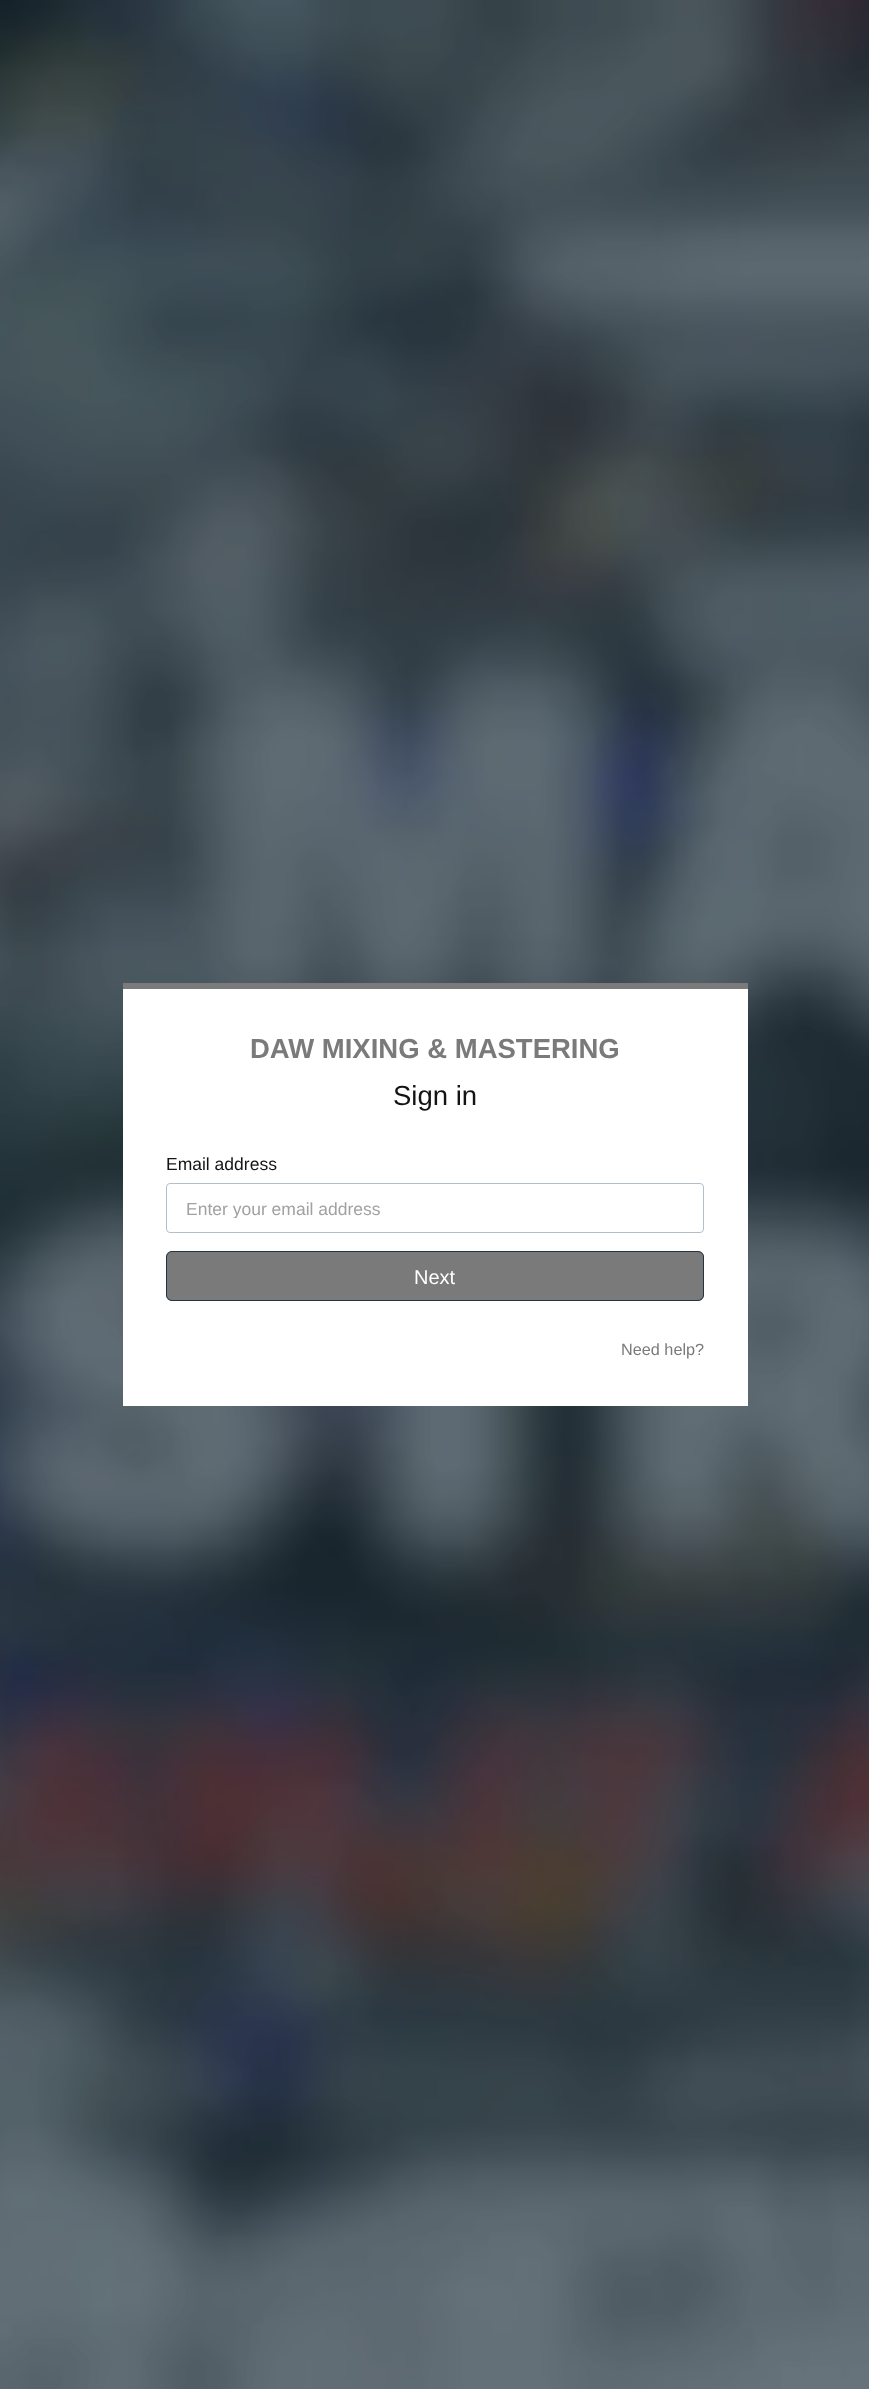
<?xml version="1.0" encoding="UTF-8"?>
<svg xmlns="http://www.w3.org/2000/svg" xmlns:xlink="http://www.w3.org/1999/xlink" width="869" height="2389">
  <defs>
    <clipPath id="clip1"><rect x="186" y="1198" width="498" height="20" /></clipPath>
  </defs>
  <rect width="100%" height="100%" fill="#1a2e3b" />
  <image x="0" y="0" width="869" height="2389" xlink:href="image1.png" />
  <rect x="123" y="989" width="625" height="417" fill="#ffffff" />
  <rect x="123" y="983" width="625" height="6" fill="#7a7a7a" />
  <rect x="166.5" y="1183.5" width="537" height="49" rx="3.5" fill="none" stroke="#b3bfc8" />
  <rect x="166" y="1251" width="538" height="50" rx="6" fill="#7a7a7a" />
  <rect x="166.5" y="1251.5" width="537" height="49" rx="5.5" fill="none" stroke="#1a2e3b" stroke-opacity="0.9" />
  <text x="250" y="1058" style="font-family: Liberation Sans; font-size: 27.5px; font-weight: bold; fill: #7a7a7a">DAW MIXING &amp; MASTERING</text>
  <text x="393" y="1105" style="font-family: Liberation Sans; font-size: 27.5px; fill: #141414">Sign in</text>
  <text x="166" y="1170" style="font-family: Liberation Sans; font-size: 17.5px; fill: #141414">Email address</text>
  <g clip-path="url(#clip1)">
    <text x="186" y="1215" style="font-family: Liberation Sans; font-size: 17.5px; fill: #a1a1a1">Enter your email address</text>
  </g>
  <text x="414" y="1284" style="font-family: Liberation Sans; font-size: 20px; fill: #ffffff">Next</text>
  <text x="621" y="1355" style="font-family: Liberation Sans; font-size: 16.25px; fill: #7a7a7a">Need help?</text>
</svg>
